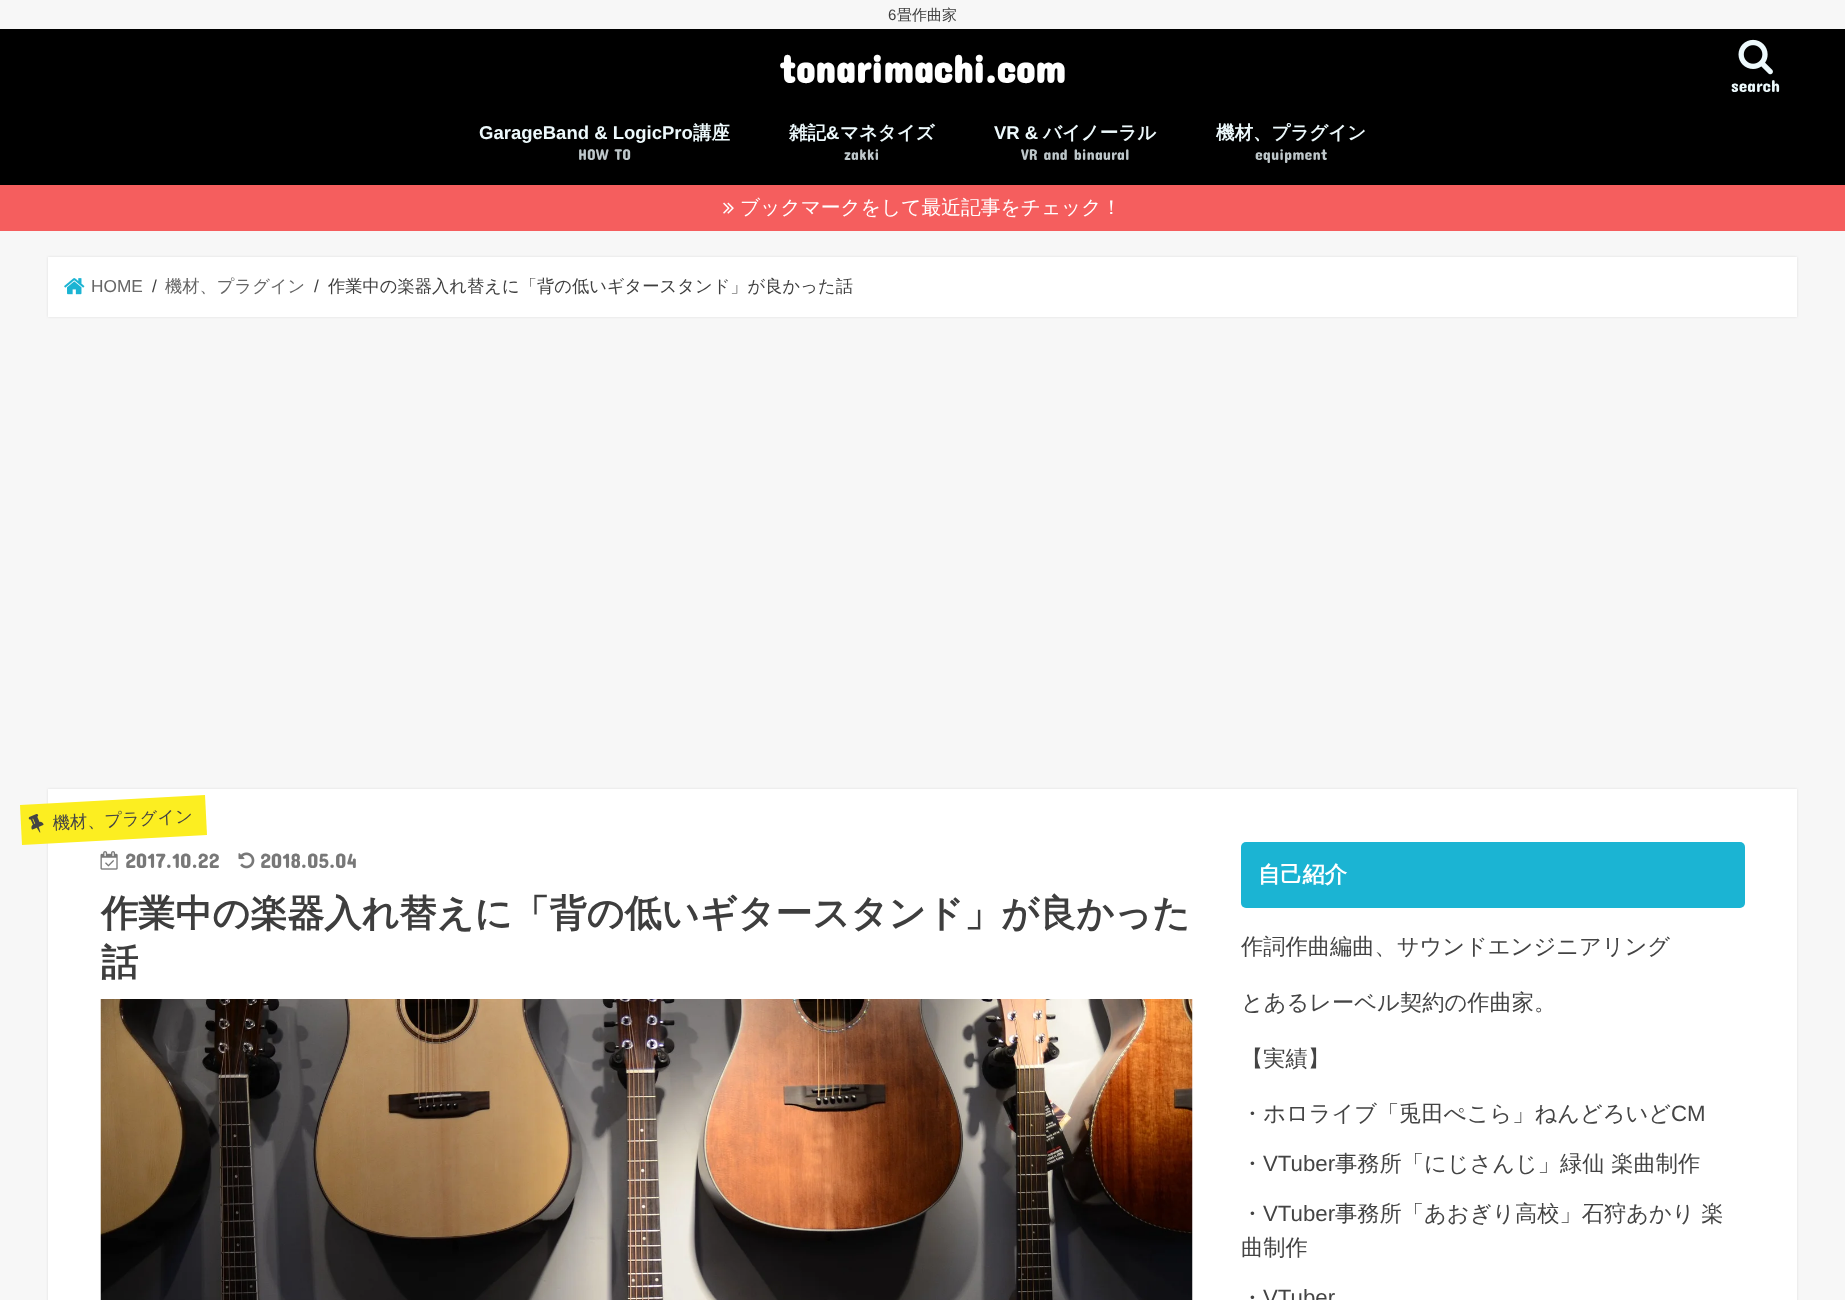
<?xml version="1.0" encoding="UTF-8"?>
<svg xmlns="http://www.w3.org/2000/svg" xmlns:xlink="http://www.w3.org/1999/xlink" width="1845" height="1300">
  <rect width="100%" height="100%" fill="#f7f7f7" />
  <rect y="29" width="1845" height="156" fill="#000000" />
  <image x="1738" y="39" width="35" height="36" xlink:href="image1.png" />
  <rect y="185" width="1845" height="46" fill="#f55e5e" />
  <image x="723" y="202" width="11" height="12" xlink:href="image2.png" />
  <rect x="48" y="257" width="1749" height="60" fill="#dddddd" filter="blur(1px)" />
  <rect x="48" y="257" width="1749" height="60" fill="#ffffff" />
  <image x="64" y="278" width="21" height="17" xlink:href="image3.png" />
  <rect x="48" y="789" width="1749" height="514" fill="#dddddd" filter="blur(1px)" />
  <rect x="48" y="789" width="1749" height="511" fill="#ffffff" />
  <path d="M 20 805 l 185 -10 l 2 40 l -185 10 z" fill="#fcee21" />
  <image x="28" y="814" width="16" height="19" xlink:href="image4.png" />
  <image x="100" y="851" width="18" height="19" xlink:href="image5.png" />
  <image x="238" y="852" width="17" height="17" xlink:href="image6.png" />
  <image x="100" y="999" width="1093" height="301" xlink:href="image7.png" />
  <rect x="1241" y="842" width="504" height="66" rx="5" fill="#1bb4d3" />
  <text x="888" y="20" style="font-family: Liberation Sans; font-size: 15px; fill: #3e3e3e">6</text>
  <text x="897" y="20" style="font-family: WenQuanYi Zen Hei; font-size: 15px; font-weight: 500; fill: #3e3e3e">畳作曲家</text>
  <text x="779" y="83" style="font-family: Concert One; font-size: 39.5px; font-weight: bold; fill: #ffffff">tonarimachi.com</text>
  <text x="1731" y="92" style="font-family: Concert One; font-size: 17.3px; fill: #edf9fc">search</text>
  <text x="479" y="139" style="font-family: Liberation Sans; font-size: 18.5px; font-weight: bold; fill: #edf9fc">GarageBand &amp; LogicPro</text>
  <text x="693" y="139" style="font-family: WenQuanYi Zen Hei; font-size: 18.5px; font-weight: bold; fill: #edf9fc">講座</text>
  <text x="578" y="160" style="font-family: Concert One; font-size: 15.75px; fill: #bec7ca">HOW TO</text>
  <text x="789" y="139" style="font-family: WenQuanYi Zen Hei; font-size: 18.5px; font-weight: bold; fill: #edf9fc">雑記</text>
  <text x="826" y="139" style="font-family: Liberation Sans; font-size: 18.5px; font-weight: bold; fill: #edf9fc">&amp;</text>
  <text x="840" y="139" style="font-family: WenQuanYi Zen Hei; font-size: 18.5px; font-weight: bold; fill: #edf9fc">マネタイズ</text>
  <text x="844" y="160" style="font-family: Concert One; font-size: 15.75px; fill: #bec7ca">zakki</text>
  <text x="994" y="139" style="font-family: Liberation Sans; font-size: 18.5px; font-weight: bold; fill: #edf9fc">VR &amp;</text>
  <text x="1043" y="139" style="font-family: WenQuanYi Zen Hei; font-size: 18.5px; font-weight: bold; fill: #edf9fc">バイノーラル</text>
  <text x="1021" y="160" style="font-family: Concert One; font-size: 15.75px; fill: #bec7ca">VR and binaural</text>
  <text x="1216" y="139" style="font-family: WenQuanYi Zen Hei; font-size: 18.5px; font-weight: bold; fill: #edf9fc">機材、プラグイン</text>
  <text x="1255" y="160" style="font-family: Concert One; font-size: 15.75px; fill: #bec7ca">equipment</text>
  <text x="740" y="214" style="font-family: WenQuanYi Zen Hei; font-size: 19.75px; font-weight: 500; fill: #ffffff">ブックマークをして最近記事をチェック！</text>
  <text x="91" y="292" style="font-family: Liberation Sans; font-size: 17.3px; fill: #666666">HOME</text>
  <text x="152" y="292" style="font-family: Liberation Sans; font-size: 17.3px; fill: #3e3e3e">/</text>
  <text x="165" y="292" style="font-family: WenQuanYi Zen Hei; font-size: 17.3px; font-weight: 500; fill: #666666">機材、プラグイン</text>
  <text x="314" y="292" style="font-family: Liberation Sans; font-size: 17.3px; fill: #3e3e3e">/</text>
  <text x="328" y="292" style="font-family: WenQuanYi Zen Hei; font-size: 17.3px; font-weight: 500; fill: #3e3e3e">作業中の楽器入れ替えに「背の低いギタースタンド」が良かった話</text>
  <text x="53" y="829" transform="rotate(-3 53 829)" style="font-family: WenQuanYi Zen Hei; font-size: 17.3px; font-weight: 500; fill: #444444">機材、プラグイン</text>
  <text x="125" y="868" style="font-family: Concert One; font-size: 21px; fill: #787878">2017.10.22</text>
  <text x="260" y="868" style="font-family: Concert One; font-size: 21px; fill: #787878">2018.05.04</text>
  <text x="101" y="926" style="font-family: WenQuanYi Zen Hei; font-size: 37.1px; font-weight: bold; fill: #3e3e3e">作業中の楽器入れ替えに「背の低いギタースタンド」が良かった</text>
  <text x="101" y="975" style="font-family: WenQuanYi Zen Hei; font-size: 37.1px; font-weight: bold; fill: #3e3e3e">話</text>
  <text x="1258" y="882" style="font-family: WenQuanYi Zen Hei; font-size: 22.25px; font-weight: bold; fill: #ffffff">自己紹介</text>
  <text x="1241" y="954" style="font-family: WenQuanYi Zen Hei; font-size: 22.25px; font-weight: 500; fill: #444444">作詞作曲編曲、サウンドエンジニアリング</text>
  <text x="1241" y="1010" style="font-family: WenQuanYi Zen Hei; font-size: 22.25px; font-weight: 500; fill: #444444">とあるレーベル契約の作曲家。</text>
  <text x="1241" y="1066" style="font-family: WenQuanYi Zen Hei; font-size: 22.25px; font-weight: 500; fill: #444444">【実績】</text>
  <text x="1241" y="1121" style="font-family: WenQuanYi Zen Hei; font-size: 22.25px; font-weight: 500; fill: #444444">・ホロライブ「兎田ぺこら」ねんどろいど</text>
  <text x="1671" y="1121" style="font-family: Liberation Sans; font-size: 22.25px; fill: #444444">CM</text>
  <text x="1241" y="1171" style="font-family: WenQuanYi Zen Hei; font-size: 22.25px; font-weight: 500; fill: #444444">・</text>
  <text x="1263" y="1171" style="font-family: Liberation Sans; font-size: 22.25px; fill: #444444">VTuber</text>
  <text x="1335" y="1171" style="font-family: WenQuanYi Zen Hei; font-size: 22.25px; font-weight: 500; fill: #444444">事務所「にじさんじ」緑仙 楽曲制作</text>
  <text x="1241" y="1221" style="font-family: WenQuanYi Zen Hei; font-size: 22.25px; font-weight: 500; fill: #444444">・</text>
  <text x="1263" y="1221" style="font-family: Liberation Sans; font-size: 22.25px; fill: #444444">VTuber</text>
  <text x="1335" y="1221" style="font-family: WenQuanYi Zen Hei; font-size: 22.25px; font-weight: 500; fill: #444444">事務所「あおぎり高校」石狩あかり 楽</text>
  <text x="1241" y="1255" style="font-family: WenQuanYi Zen Hei; font-size: 22.25px; font-weight: 500; fill: #444444">曲制作</text>
  <text x="1241" y="1305" style="font-family: WenQuanYi Zen Hei; font-size: 22.25px; font-weight: 500; fill: #444444">・</text>
  <text x="1263" y="1305" style="font-family: Liberation Sans; font-size: 22.25px; fill: #444444">VTuber</text>
</svg>
